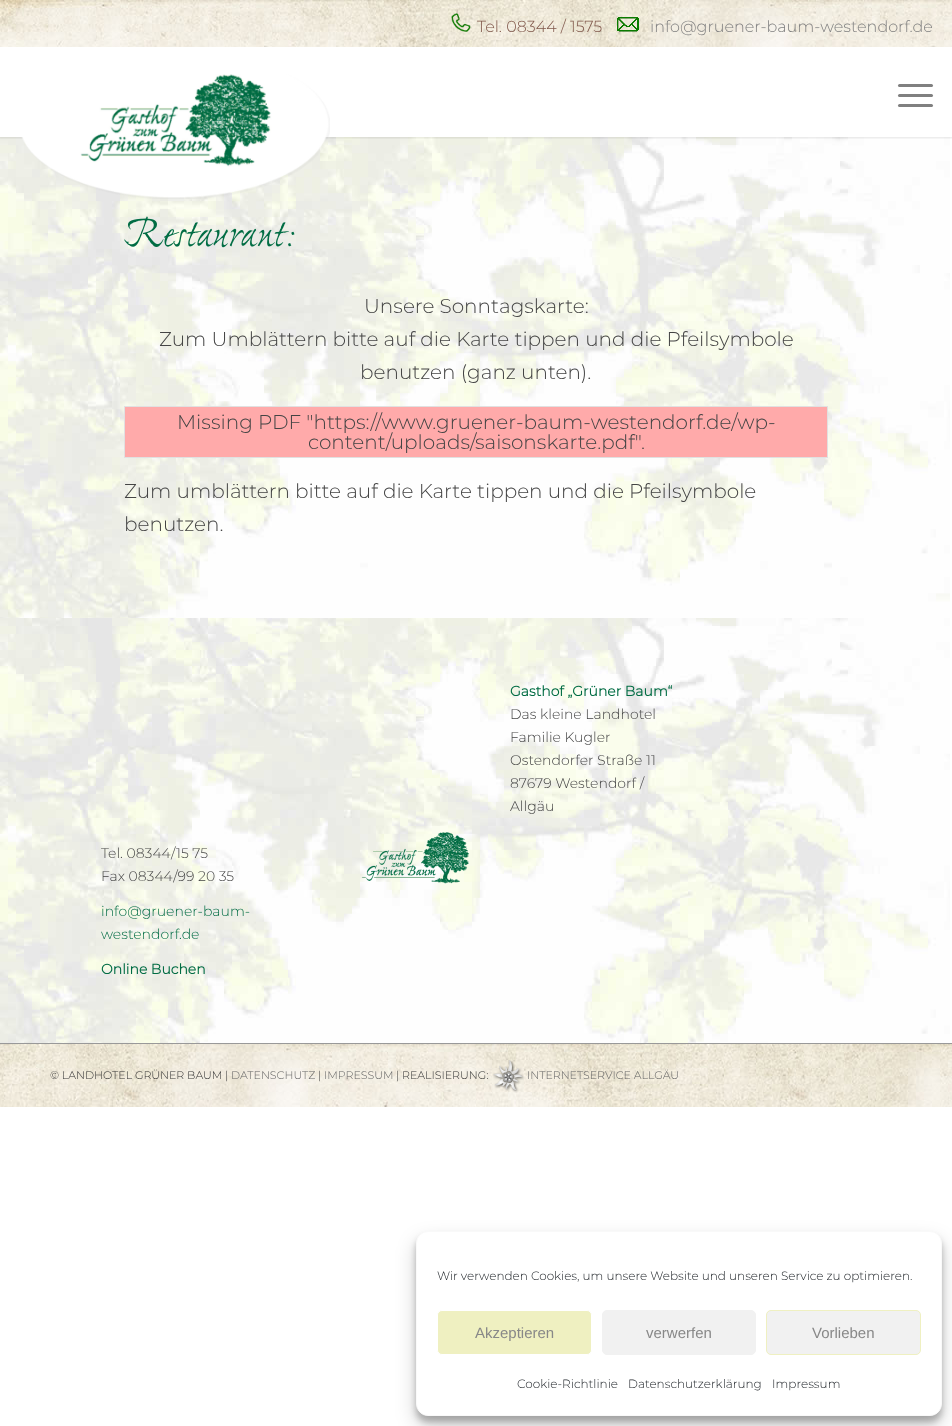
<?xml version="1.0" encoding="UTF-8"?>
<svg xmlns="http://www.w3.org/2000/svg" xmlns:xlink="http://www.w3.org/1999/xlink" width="952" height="1426">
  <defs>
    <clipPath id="clip1"><rect x="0" y="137" width="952" height="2" /></clipPath>
  </defs>
  <rect width="100%" height="100%" fill="#ffffff" />
  <image x="0" y="137" width="950" height="481" xlink:href="image5.png" />
  <g clip-path="url(#clip1)">
    <rect x="-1" y="-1" width="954" height="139" fill="#000000" fill-opacity="0.1" filter="blur(1px)" />
  </g>
  <image x="0" y="0" width="952" height="47" xlink:href="image1.png" />
  <image x="451" y="13" width="20" height="19" xlink:href="image2.png" />
  <image x="617" y="17" width="22" height="15" xlink:href="image3.png" />
  <image x="21" y="74" width="309" height="125" xlink:href="image4.png" />
  <rect x="898" y="94" width="35" height="3" rx="1.5" fill="#808080" />
  <rect x="898" y="84" width="35" height="3" rx="1.5" fill="#808080" />
  <rect x="898" y="104" width="35" height="3" rx="1.5" fill="#808080" />
  <image x="124" y="216" width="171" height="32" xlink:href="image6.png" />
  <rect x="124.5" y="406.5" width="703" height="51" fill="none" stroke="#e1e1e1" />
  <rect x="125" y="407" width="702" height="50" fill="#ffaaaa" />
  <image x="0" y="618" width="950" height="425" xlink:href="image7.png" />
  <image x="361" y="832" width="109" height="52" xlink:href="image8.png" />
  <image x="0" y="1044" width="952" height="63" xlink:href="image9.png" />
  <rect y="1043" width="952" height="1" fill="#999999" />
  <image x="493" y="1060" width="32" height="33" xlink:href="image10.png" />
  <rect x="416" y="1237" width="526" height="185" rx="12" fill="#000000" fill-opacity="0.23" filter="blur(3px)" />
  <rect x="416" y="1241" width="526" height="185" rx="12" fill="#000000" fill-opacity="0.19" filter="blur(10px)" />
  <rect x="416.5" y="1231.5" width="525" height="184" rx="11.5" fill="#ffffff" stroke="#f9f9f9" />
  <rect x="437.5" y="1310.5" width="154" height="44" rx="4.5" fill="#eff0c1" stroke="#ffffff" />
  <rect x="602.5" y="1310.5" width="153" height="44" rx="4.5" fill="#f1f1f1" stroke="#f1f1f1" />
  <rect x="766.5" y="1310.5" width="154" height="44" rx="4.5" fill="#f1f1f1" stroke="#eff0c1" />
  <text x="477" y="32" style="font-family: Montserrat; font-size: 16px; font-weight: 300; fill: #80584b">Tel. 08344 / 1575</text>
  <text x="650" y="32" style="font-family: Montserrat; font-size: 16px; font-weight: 300; fill: #808080">info@gruener-baum-westendorf.de</text>
  <text x="364" y="313" style="font-family: Montserrat; font-size: 20px; font-weight: 300; fill: #444444">Unsere Sonntagskarte:</text>
  <text x="159" y="346" style="font-family: Montserrat; font-size: 20px; font-weight: 300; fill: #444444">Zum Umblättern bitte auf die Karte tippen und die Pfeilsymbole</text>
  <text x="360" y="379" style="font-family: Montserrat; font-size: 20px; font-weight: 300; fill: #444444">benutzen (ganz unten).</text>
  <text x="177" y="429" style="font-family: Montserrat; font-size: 20px; font-weight: 300; fill: #444444">Missing PDF "https://www.gruener-baum-westendorf.de/wp-</text>
  <text x="308" y="449" style="font-family: Montserrat; font-size: 20px; font-weight: 300; fill: #444444">content/uploads/saisonskarte.pdf".</text>
  <text x="124" y="498" style="font-family: Montserrat; font-size: 20px; font-weight: 300; fill: #444444">Zum umblättern bitte auf die Karte tippen und die Pfeilsymbole</text>
  <text x="124" y="531" style="font-family: Montserrat; font-size: 20px; font-weight: 300; fill: #444444">benutzen.</text>
  <text x="510" y="696" style="font-family: Montserrat; font-size: 14px; font-weight: bold; fill: #006c43">Gasthof „Grüner Baum“</text>
  <text x="510" y="719" style="font-family: Montserrat; font-size: 14px; font-weight: 300; fill: #444444">Das kleine Landhotel</text>
  <text x="510" y="742" style="font-family: Montserrat; font-size: 14px; font-weight: 300; fill: #444444">Familie Kugler</text>
  <text x="510" y="765" style="font-family: Montserrat; font-size: 14px; font-weight: 300; fill: #444444">Ostendorfer Straße 11</text>
  <text x="510" y="788" style="font-family: Montserrat; font-size: 14px; font-weight: 300; fill: #444444">87679 Westendorf /</text>
  <text x="510" y="811" style="font-family: Montserrat; font-size: 14px; font-weight: 300; fill: #444444">Allgäu</text>
  <text x="101" y="858" style="font-family: Montserrat; font-size: 14px; font-weight: 300; fill: #444444">Tel. 08344/15 75</text>
  <text x="101" y="881" style="font-family: Montserrat; font-size: 14px; font-weight: 300; fill: #444444">Fax 08344/99 20 35</text>
  <text x="101" y="916" style="font-family: Montserrat; font-size: 14px; font-weight: 300; fill: #006c43">info@gruener-baum-</text>
  <text x="101" y="939" style="font-family: Montserrat; font-size: 14px; font-weight: 300; fill: #006c43">westendorf.de</text>
  <text x="101" y="974" style="font-family: Montserrat; font-size: 14px; font-weight: bold; fill: #006c43">Online Buchen</text>
  <text x="50" y="1079" style="font-family: Montserrat; font-size: 11px; font-weight: 300; fill: #333333">© LANDHOTEL GRÜNER BAUM |</text>
  <text x="231" y="1079" style="font-family: Montserrat; font-size: 11px; font-weight: 300; fill: #666666">DATENSCHUTZ</text>
  <text x="318" y="1079" style="font-family: Montserrat; font-size: 11px; font-weight: 300; fill: #333333">|</text>
  <text x="324" y="1079" style="font-family: Montserrat; font-size: 11px; font-weight: 300; fill: #666666">IMPRESSUM</text>
  <text x="396" y="1079" style="font-family: Montserrat; font-size: 11px; font-weight: 300; fill: #333333">| REALISIERUNG:</text>
  <text x="527" y="1079" style="font-family: Montserrat; font-size: 11px; font-weight: 300; fill: #666666">INTERNETSERVICE ALLGÄU</text>
  <text x="437" y="1280" style="font-family: Montserrat; font-size: 12px; font-weight: 300; fill: #191e23">Wir verwenden Cookies, um unsere Website und unseren Service zu optimieren.</text>
  <text x="475" y="1338" style="font-family: Liberation Sans; font-size: 15px; fill: #888888">Akzeptieren</text>
  <text x="646" y="1338" style="font-family: Liberation Sans; font-size: 15px; fill: #888888">verwerfen</text>
  <text x="812" y="1338" style="font-family: Liberation Sans; font-size: 15px; fill: #888888">Vorlieben</text>
  <text x="517" y="1388" style="font-family: Montserrat; font-size: 12px; font-weight: 300; fill: #191e23">Cookie-Richtlinie</text>
  <text x="628" y="1388" style="font-family: Montserrat; font-size: 12px; font-weight: 300; fill: #191e23">Datenschutzerklärung</text>
  <text x="772" y="1388" style="font-family: Montserrat; font-size: 12px; font-weight: 300; fill: #191e23">Impressum</text>
</svg>
